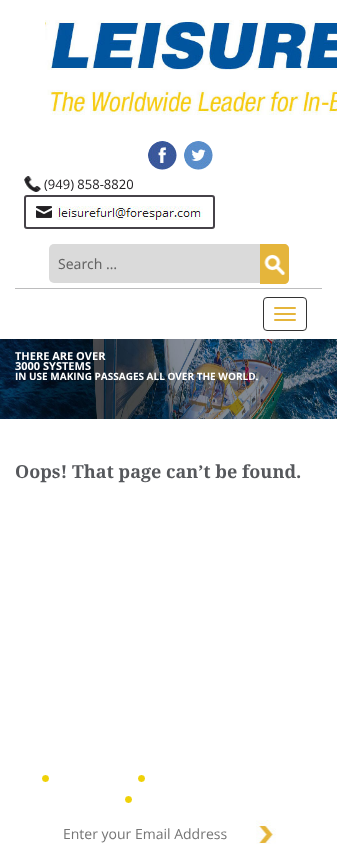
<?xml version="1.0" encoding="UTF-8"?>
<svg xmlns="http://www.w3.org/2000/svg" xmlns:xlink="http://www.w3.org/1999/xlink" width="337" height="861">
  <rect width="100%" height="100%" fill="#ffffff" />
  <image x="45" y="20" width="292" height="95" xlink:href="image1.png" />
  <image x="148" y="141" width="29" height="29" xlink:href="image2.png" />
  <image x="184" y="141" width="29" height="29" xlink:href="image3.png" />
  <image x="24" y="176" width="17" height="16" xlink:href="image4.png" />
  <image x="36" y="206" width="16" height="12" xlink:href="image5.png" />
  <rect x="25" y="196" width="189" height="32" rx="2" fill="none" stroke="#464248" stroke-width="2" />
  <image x="56" y="206" width="147" height="14" xlink:href="image6.png" />
  <rect x="49" y="244" width="240" height="39" rx="5" fill="#dadada" />
  <path d="M 260 244 h 24 c 3 0 5 2 5 5 v 30 c 0 3 -2 5 -5 5 h -24 z" fill="#e5b53b" />
  <image x="264" y="254" width="22" height="22" xlink:href="image7.png" />
  <rect x="15" y="288" width="307" height="1" fill="#bcbcbd" />
  <rect x="263.5" y="297.5" width="43" height="33" rx="3.5" fill="none" stroke="#333333" />
  <rect x="274" y="307" width="22" height="2" rx="1" fill="#e5b53b" />
  <rect x="274" y="313" width="22" height="2" rx="1" fill="#e5b53b" />
  <rect x="274" y="319" width="22" height="2" rx="1" fill="#e5b53b" />
  <image x="0" y="339" width="337" height="80" xlink:href="image8.png" />
  <image x="42" y="775" width="7" height="7" xlink:href="image9.png" />
  <image x="138" y="775" width="7" height="7" xlink:href="image9.png" />
  <image x="125" y="796" width="7" height="7" xlink:href="image9.png" />
  <image x="256" y="820" width="20" height="24" xlink:href="image10.png" />
  <text x="44" y="189" style="font-family: Open Sans; font-size: 13px; fill: #222023">(949) 858-8820</text>
  <text x="58" y="269" style="font-family: Noto Sans; font-size: 14px; fill: #656565">Search …</text>
  <text x="15" y="360" style="font-family: Open Sans; font-size: 11px; font-weight: bold; fill: #ffffff">THERE ARE OVER</text>
  <text x="15" y="370" style="font-family: Open Sans; font-size: 11px; font-weight: bold; fill: #ffffff">3000 SYSTEMS</text>
  <text x="15" y="380" style="font-family: Open Sans; font-size: 10px; font-weight: bold; fill: #ffffff">IN USE MAKING PASSAGES ALL OVER THE WORLD.</text>
  <text x="15" y="478" style="font-family: Noto Serif; font-size: 18px; font-weight: bold; fill: #56585c">Oops! That page can’t be found.</text>
  <text x="63" y="839" style="font-family: Open Sans; font-size: 14px; fill: #757575">Enter your Email Address</text>
</svg>
